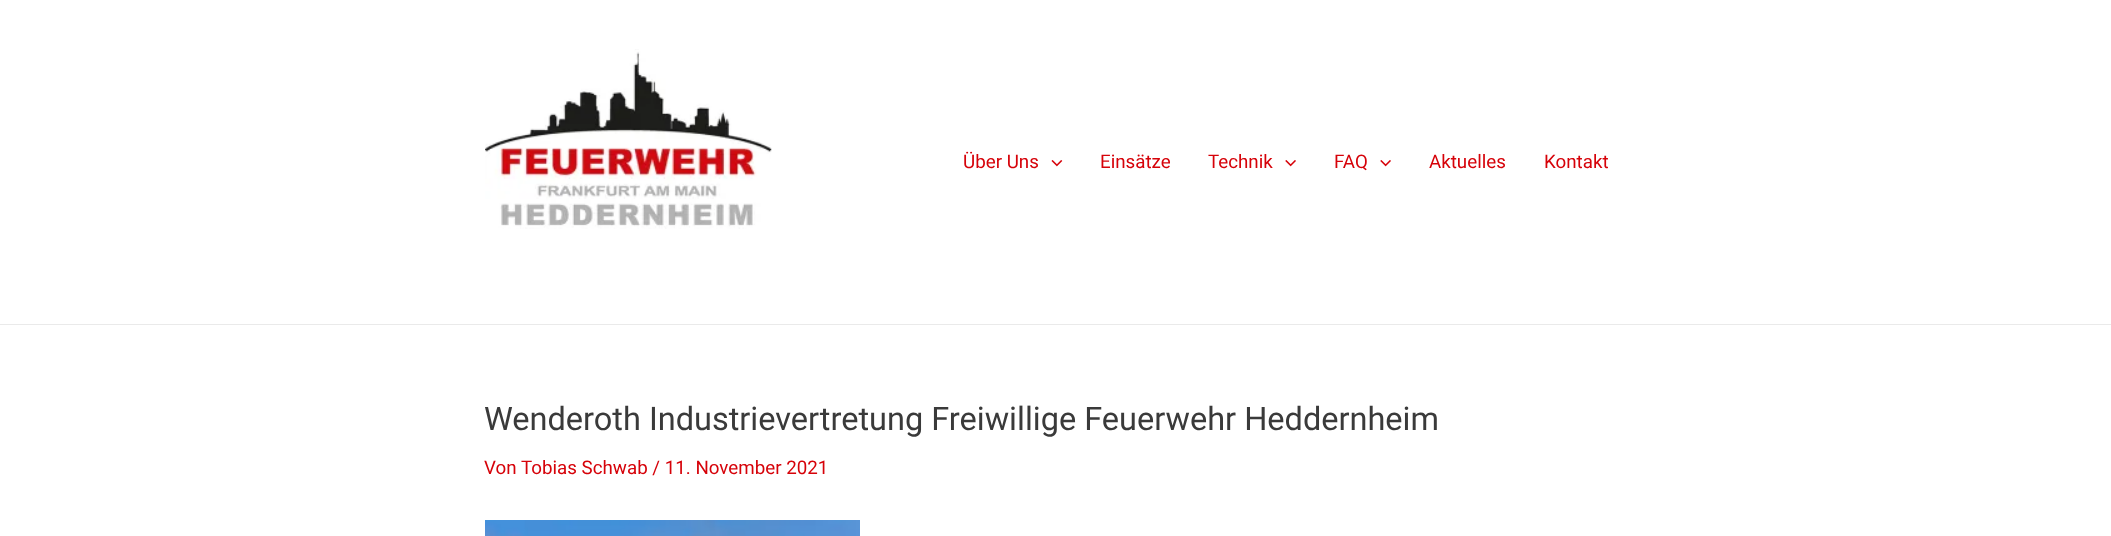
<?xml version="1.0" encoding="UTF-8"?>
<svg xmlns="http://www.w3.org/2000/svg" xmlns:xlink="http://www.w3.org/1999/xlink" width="2111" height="536">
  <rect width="100%" height="100%" fill="#ffffff" />
  <rect y="324" width="2111" height="1" fill="#eaeaea" />
  <image x="485" y="49" width="287" height="180" xlink:href="image1.png" />
  <image x="1051" y="160" width="12" height="7" xlink:href="image2.png" />
  <image x="1285" y="160" width="11" height="7" xlink:href="image3.png" />
  <image x="1380" y="160" width="11" height="7" xlink:href="image3.png" />
  <image x="485" y="520" width="375" height="16" xlink:href="image4.png" />
  <text x="963" y="168" style="font-family: Roboto; font-size: 18.75px; fill: #d60209">Über Uns</text>
  <text x="1100" y="168" style="font-family: Roboto; font-size: 18.75px; fill: #d60209">Einsätze</text>
  <text x="1208" y="168" style="font-family: Roboto; font-size: 18.75px; fill: #d60209">Technik</text>
  <text x="1334" y="168" style="font-family: Roboto; font-size: 18.75px; fill: #d60209">FAQ</text>
  <text x="1429" y="168" style="font-family: Roboto; font-size: 18.75px; fill: #d60209">Aktuelles</text>
  <text x="1544" y="168" style="font-family: Roboto; font-size: 18.75px; fill: #d60209">Kontakt</text>
  <text x="484" y="430" style="font-family: Roboto; font-size: 32.5px; fill: #3a3a3a">Wenderoth Industrievertretung Freiwillige Feuerwehr Heddernheim</text>
  <text x="484" y="474" style="font-family: Roboto; font-size: 18.75px; fill: #d60209">Von</text>
  <text x="521" y="474" style="font-family: Roboto; font-size: 18.75px; fill: #d60209">Tobias Schwab / 11. November 2021</text>
</svg>
